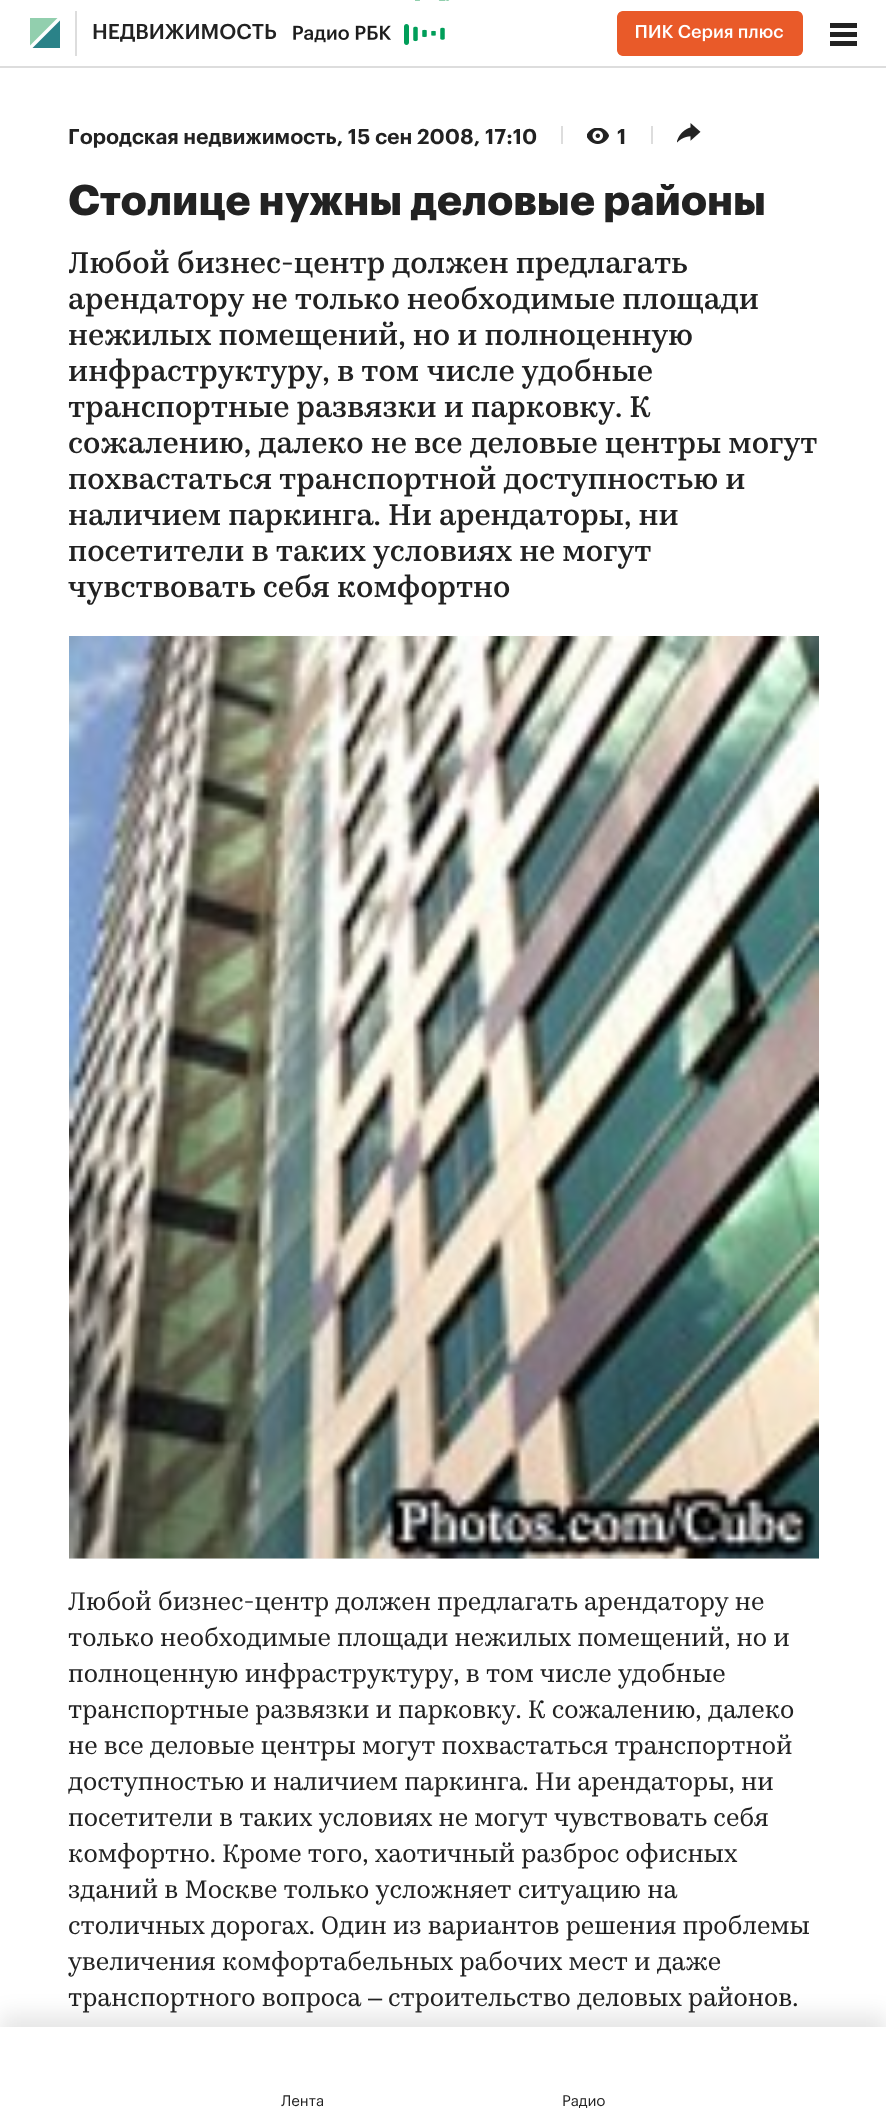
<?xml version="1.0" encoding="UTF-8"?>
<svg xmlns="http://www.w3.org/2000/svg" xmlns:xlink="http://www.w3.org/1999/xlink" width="886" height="2116">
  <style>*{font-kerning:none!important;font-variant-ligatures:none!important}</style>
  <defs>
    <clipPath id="clip1"><rect x="407" width="75" height="1" /></clipPath>
    <clipPath id="clip2"><rect x="69" y="248" width="750" height="360" /></clipPath>
  </defs>
  <rect width="100%" height="100%" fill="#ffffff" />
  <g clip-path="url(#clip1)">
    <path d="M 428.5 -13.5 c -9.5 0 -14 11.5 -9 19 m 21 -3 c 4.5 -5 11 -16 19 -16 m 9 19 c -6.5 9.5 -15 4 -21 -3" fill="none" stroke="#92cfae" stroke-width="4.8" stroke-linecap="round" />
  </g>
  <rect y="66" width="886" height="2" fill="#dddddd" />
  <path d="M 30 18 v 27.5 l 27.5 -27.5 z" fill="#92cfae" fill-rule="evenodd" />
  <path d="M 32.5 48 h 27.5 v -27.5 z" fill="#2a8288" fill-rule="evenodd" />
  <rect x="75" y="11" width="2" height="45" fill="#dddddd" />
  <image x="293" y="24" width="152" height="21" xlink:href="image1.png" />
  <image x="617" y="11" width="186" height="45" xlink:href="image2.png" />
  <rect x="830" y="23" width="27" height="5" fill="#222222" />
  <rect x="830" y="32" width="27" height="5" fill="#222222" />
  <rect x="830" y="41" width="27" height="5" fill="#222222" />
  <rect x="561" y="126" width="2" height="18" fill="#dddddd" />
  <image x="587" y="128" width="22" height="16" xlink:href="image3.png" />
  <rect x="651" y="126" width="2" height="18" fill="#dddddd" />
  <image x="677" y="123" width="24" height="20" xlink:href="image4.png" />
  <rect x="69" y="1558" width="750" height="1" fill="#f5f5f5" />
  <image x="69" y="636" width="750" height="923" xlink:href="image5.png" />
  <rect y="2015" width="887" height="90" fill="#000000" fill-opacity="0.1" filter="blur(11px)" />
  <rect y="2027" width="886" height="89" fill="#ffffff" />
  <text x="92" y="39" style="font-family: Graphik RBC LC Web; font-size: 21px; font-weight: 500; fill: #222222">НЕДВИЖИМОСТЬ</text>
  <text x="68" y="144" style="font-family: Graphik RBC LC Web; font-size: 21px; font-weight: 600; fill: #222222">Городская недвижимость, 15 сен 2008, 17:10</text>
  <text x="617" y="144" style="font-family: Graphik RBC LC Web; font-size: 21px; font-weight: 600; fill: #222222">1</text>
  <text x="68" y="215" style="font-family: Graphik RBC LC Web; font-size: 42px; font-weight: bold; fill: #222222">Столице нужны деловые районы</text>
  <g clip-path="url(#clip2)">
    <text x="68" y="273" style="font-family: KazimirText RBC; font-size: 30px; font-weight: 500; fill: #222222">Любой бизнес-центр должен предлагать</text>
  </g>
  <text x="68" y="309" style="font-family: KazimirText RBC; font-size: 30px; font-weight: 500; fill: #222222">арендатору не только необходимые площади</text>
  <text x="68" y="345" style="font-family: KazimirText RBC; font-size: 30px; font-weight: 500; fill: #222222">нежилых помещений, но и полноценную</text>
  <text x="68" y="381" style="font-family: KazimirText RBC; font-size: 30px; font-weight: 500; fill: #222222">инфраструктуру, в том</text>
  <text x="427" y="381" style="font-family: KazimirText RBC; font-size: 30px; font-weight: 500; fill: #222222">числе удобные</text>
  <text x="68" y="417" style="font-family: KazimirText RBC; font-size: 30px; font-weight: 500; fill: #222222">транспортные развязки и парковку. К</text>
  <text x="68" y="453" style="font-family: KazimirText RBC; font-size: 30px; font-weight: 500; fill: #222222">сожалению, далеко не все деловые центры могут</text>
  <text x="68" y="489" style="font-family: KazimirText RBC; font-size: 30px; font-weight: 500; fill: #222222">похвастаться транспортной доступностью и</text>
  <text x="68" y="525" style="font-family: KazimirText RBC; font-size: 30px; font-weight: 500; fill: #222222">наличием паркинга. Ни арендаторы, ни</text>
  <text x="68" y="561" style="font-family: KazimirText RBC; font-size: 30px; font-weight: 500; fill: #222222">посетители в таких условиях не могут</text>
  <text x="68" y="597" style="font-family: KazimirText RBC; font-size: 30px; font-weight: 500; fill: #222222">чувствовать себя комфортно</text>
  <text x="68" y="1610" style="font-family: KazimirText RBC; font-size: 25.5px; fill: #222222">Любой бизнес-центр должен предлагать арендатору не</text>
  <text x="68" y="1646" style="font-family: KazimirText RBC; font-size: 25.5px; fill: #222222">только необходимые площади нежилых помещений, но и</text>
  <text x="68" y="1682" style="font-family: KazimirText RBC; font-size: 25.5px; fill: #222222">полноценную инфраструктуру, в</text>
  <text x="486" y="1682" style="font-family: KazimirText RBC; font-size: 25.5px; fill: #222222">том числе удобные</text>
  <text x="68" y="1718" style="font-family: KazimirText RBC; font-size: 25.5px; fill: #222222">транспортные развязки и парковку. К сожалению,</text>
  <text x="708" y="1718" style="font-family: KazimirText RBC; font-size: 25.5px; fill: #222222">далеко</text>
  <text x="68" y="1754" style="font-family: KazimirText RBC; font-size: 25.5px; fill: #222222">не все деловые центры могут похвастаться транспортной</text>
  <text x="68" y="1790" style="font-family: KazimirText RBC; font-size: 25.5px; fill: #222222">доступностью и наличием паркинга. Ни арендаторы, ни</text>
  <text x="68" y="1826" style="font-family: KazimirText RBC; font-size: 25.5px; fill: #222222">посетители в таких условиях не могут чувствовать себя</text>
  <text x="68" y="1862" style="font-family: KazimirText RBC; font-size: 25.5px; fill: #222222">комфортно. Кроме того, хаотичный разброс офисных</text>
  <text x="68" y="1898" style="font-family: KazimirText RBC; font-size: 25.5px; fill: #222222">зданий в Москве только усложняет ситуацию на</text>
  <text x="68" y="1934" style="font-family: KazimirText RBC; font-size: 25.5px; fill: #222222">столичных дорогах. Один из вариантов решения проблемы</text>
  <text x="68" y="1970" style="font-family: KazimirText RBC; font-size: 25.5px; fill: #222222">увеличения комфортабельных рабочих мест и даже</text>
  <text x="68" y="2006" style="font-family: KazimirText RBC; font-size: 25.5px; fill: #222222">транспортного вопроса</text>
  <text x="368" y="2006" style="font-family: Liberation Sans; font-size: 25.5px; fill: #222222">–</text>
  <text x="388" y="2006" style="font-family: KazimirText RBC; font-size: 25.5px; fill: #222222">строительство деловых районов.</text>
  <text x="281" y="2106" style="font-family: Graphik RBC LC Web; font-size: 15px; fill: #222222">Лента</text>
  <text x="562" y="2106" style="font-family: Graphik RBC LC Web; font-size: 15px; fill: #222222">Радио</text>
</svg>
